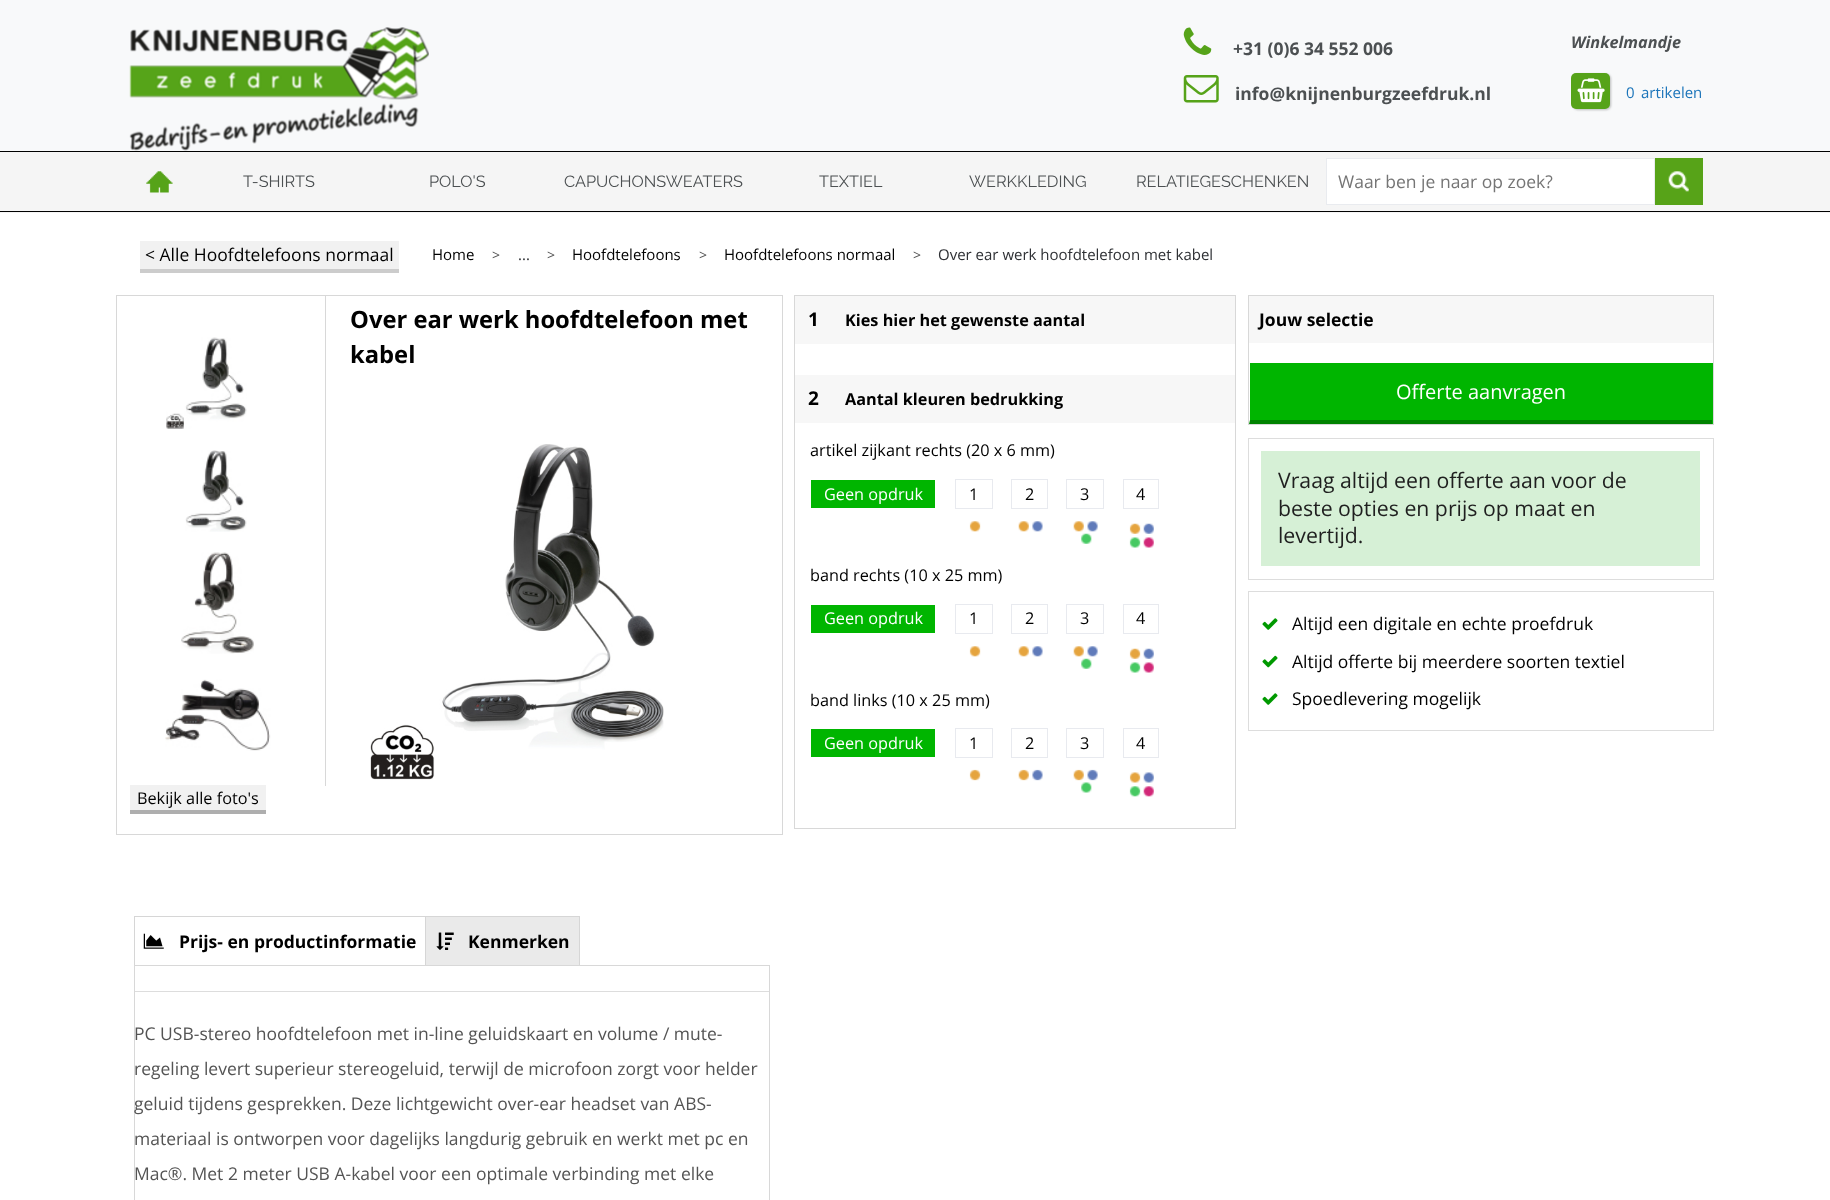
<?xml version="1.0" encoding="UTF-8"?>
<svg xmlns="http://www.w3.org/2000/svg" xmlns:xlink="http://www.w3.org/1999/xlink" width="1830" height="1200">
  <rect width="100%" height="100%" fill="#ffffff" />
  <rect width="1830" height="151" fill="#f8f9fa" />
  <image x="129" y="27" width="300" height="124" xlink:href="image1.png" />
  <image x="1183" y="27" width="29" height="28" xlink:href="image2.png" />
  <image x="1183" y="75" width="36" height="28" xlink:href="image3.png" />
  <rect x="1573" y="74" width="38" height="36" rx="5" fill="#323232" fill-opacity="0.3" filter="blur(1px)" />
  <rect x="1571" y="73" width="39" height="36" rx="5" fill="#56a319" />
  <image x="1577" y="78" width="28" height="25" xlink:href="image4.png" />
  <rect y="152" width="1830" height="61" fill="#f5f5f5" />
  <rect y="151" width="1830" height="1" fill="#000000" />
  <rect y="211" width="1830" height="1" fill="#000000" />
  <image x="146" y="171" width="27" height="22" xlink:href="image5.png" />
  <rect x="1326.5" y="158.5" width="328" height="46" fill="#ffffff" stroke="#e9ebef" />
  <rect x="1655" y="158" width="48" height="47" fill="#57a318" />
  <image x="1668" y="171" width="21" height="21" xlink:href="image6.png" />
  <rect x="140" y="241" width="259" height="28" fill="#f1f1f1" />
  <rect x="140" y="269" width="259" height="4" fill="#cccccc" />
  <rect x="116.5" y="295.5" width="666" height="539" fill="none" stroke="#d8d8d8" />
  <image x="370" y="444" width="294" height="336" xlink:href="image7.png" />
  <rect x="325" y="296" width="1" height="490" fill="#d8d8d8" />
  <image x="166" y="337" width="81" height="92" xlink:href="image8.png" />
  <image x="185" y="450" width="62" height="82" xlink:href="image9.png" />
  <image x="181" y="552" width="73" height="102" xlink:href="image10.png" />
  <image x="165" y="679" width="106" height="72" xlink:href="image11.png" />
  <rect x="130" y="785" width="136" height="25" fill="#f1f1f1" />
  <rect x="130" y="810" width="136" height="4" fill="#aeaeae" />
  <rect x="794.5" y="295.5" width="441" height="533" fill="none" stroke="#d8d8d8" />
  <rect x="795" y="296" width="440" height="48" fill="#f7f7f7" />
  <rect x="795" y="375" width="440" height="48" fill="#f7f7f7" />
  <rect x="811" y="480" width="124" height="28" fill="#00b500" />
  <image x="969" y="521" width="12" height="11" xlink:href="image12.png" />
  <rect x="955.5" y="479.5" width="37" height="29" fill="none" stroke="#e8eaef" />
  <image x="1018" y="521" width="25" height="11" xlink:href="image13.png" />
  <rect x="1011.5" y="479.5" width="36" height="29" fill="none" stroke="#e8eaef" />
  <image x="1073" y="521" width="25" height="23" xlink:href="image14.png" />
  <rect x="1066.5" y="479.5" width="37" height="29" fill="none" stroke="#e8eaef" />
  <image x="1129" y="523" width="25" height="25" xlink:href="image15.png" />
  <rect x="1123.5" y="479.5" width="35" height="29" fill="none" stroke="#e8eaef" />
  <rect x="811" y="605" width="124" height="28" fill="#00b500" />
  <image x="969" y="646" width="12" height="11" xlink:href="image12.png" />
  <rect x="955.5" y="604.5" width="37" height="29" fill="none" stroke="#e8eaef" />
  <image x="1018" y="646" width="25" height="11" xlink:href="image13.png" />
  <rect x="1011.5" y="604.5" width="36" height="29" fill="none" stroke="#e8eaef" />
  <image x="1073" y="646" width="25" height="23" xlink:href="image14.png" />
  <rect x="1066.5" y="604.5" width="37" height="29" fill="none" stroke="#e8eaef" />
  <image x="1129" y="648" width="25" height="25" xlink:href="image15.png" />
  <rect x="1123.5" y="604.5" width="35" height="29" fill="none" stroke="#e8eaef" />
  <rect x="811" y="729" width="124" height="28" fill="#00b500" />
  <image x="969" y="769" width="12" height="12" xlink:href="image16.png" />
  <rect x="955.5" y="728.5" width="37" height="29" fill="none" stroke="#e8eaef" />
  <image x="1018" y="769" width="25" height="12" xlink:href="image17.png" />
  <rect x="1011.5" y="728.5" width="36" height="29" fill="none" stroke="#e8eaef" />
  <image x="1073" y="769" width="25" height="24" xlink:href="image18.png" />
  <rect x="1066.5" y="728.5" width="37" height="29" fill="none" stroke="#e8eaef" />
  <image x="1129" y="772" width="25" height="25" xlink:href="image19.png" />
  <rect x="1123.5" y="728.5" width="35" height="29" fill="none" stroke="#e8eaef" />
  <rect x="1248.5" y="295.5" width="465" height="129" fill="none" stroke="#d8d8d8" />
  <rect x="1249" y="296" width="464" height="47" fill="#f7f7f7" />
  <rect x="1249" y="363" width="464" height="61" fill="#00b500" />
  <path d="M 1712 424 h -463 l 1 -4 h 462 z" fill="#008200" />
  <path d="M 1249 424 v -62 h 1 v 58 z" fill="#ffffff" />
  <rect x="1248.5" y="438.5" width="465" height="141" fill="none" stroke="#dddddd" />
  <rect x="1261" y="451" width="439" height="115" fill="#d6f0d6" />
  <rect x="1248.5" y="591.5" width="465" height="139" fill="none" stroke="#dddddd" />
  <image x="1262" y="618" width="16" height="12" xlink:href="image20.png" />
  <image x="1262" y="655" width="16" height="13" xlink:href="image21.png" />
  <image x="1262" y="693" width="16" height="12" xlink:href="image20.png" />
  <rect x="134" y="916" width="446" height="1" fill="#d6d6d6" />
  <rect x="134" y="916" width="1" height="49" fill="#d6d6d6" />
  <image x="143" y="933" width="21" height="16" xlink:href="image22.png" />
  <rect x="426" y="917" width="153" height="48" fill="#eaeaea" />
  <rect x="579" y="916" width="1" height="49" fill="#d6d6d6" />
  <rect x="425" y="916" width="1" height="49" fill="#d6d6d6" />
  <image x="436" y="932" width="18" height="18" xlink:href="image23.png" />
  <rect x="134.5" y="965.5" width="635" height="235" fill="none" stroke="#d8d8d8" />
  <rect x="135" y="991" width="634" height="1" fill="#dddddd" />
  <text x="1233" y="55" style="font-family: Open Sans; font-size: 17.5px; font-weight: bold; fill: #4c5052">+31 (0)6 34 552 006</text>
  <text x="1235" y="100" style="font-family: Open Sans; font-size: 17.5px; font-weight: bold; fill: #4c5052">info@knijnenburgzeefdruk.nl</text>
  <text x="1571" y="48" style="font-family: Open Sans; font-size: 16.25px; font-weight: bold; font-style: italic; fill: #4c5052">Winkelmandje</text>
  <text x="1626" y="98" style="font-family: Open Sans; font-size: 15px; fill: #1c75ba">0</text>
  <text x="1641" y="98" style="font-family: Open Sans; font-size: 15px; fill: #1c75ba">artikelen</text>
  <text x="243" y="187" style="font-family: Raleway; font-size: 16.25px; fill: #4c5052">T-SHIRTS</text>
  <text x="429" y="187" style="font-family: Raleway; font-size: 16.25px; fill: #4c5052">POLO'S</text>
  <text x="564" y="187" style="font-family: Raleway; font-size: 16.25px; fill: #4c5052">CAPUCHONSWEATERS</text>
  <text x="819" y="187" style="font-family: Raleway; font-size: 16.25px; fill: #4c5052">TEXTIEL</text>
  <text x="969" y="187" style="font-family: Raleway; font-size: 16.25px; fill: #4c5052">WERKKLEDING</text>
  <text x="1136" y="187" style="font-family: Raleway; font-size: 16.25px; fill: #4c5052">RELATIEGESCHENKEN</text>
  <text x="1338" y="188" style="font-family: Open Sans; font-size: 17.5px; fill: #757575">Waar ben je naar op zoek?</text>
  <text x="145" y="261" style="font-family: Open Sans; font-size: 17.5px; fill: #000000">&lt; Alle Hoofdtelefoons normaal</text>
  <text x="432" y="260" style="font-family: Open Sans; font-size: 15px; fill: #000000">Home</text>
  <text x="492" y="260" style="font-family: Open Sans; font-size: 14px; fill: #545454">&gt;</text>
  <text x="547" y="260" style="font-family: Open Sans; font-size: 14px; fill: #545454">&gt;</text>
  <text x="572" y="260" style="font-family: Open Sans; font-size: 15px; fill: #000000">Hoofdtelefoons</text>
  <text x="699" y="260" style="font-family: Open Sans; font-size: 14px; fill: #545454">&gt;</text>
  <text x="724" y="260" style="font-family: Open Sans; font-size: 15px; fill: #000000">Hoofdtelefoons normaal</text>
  <text x="913" y="260" style="font-family: Open Sans; font-size: 14px; fill: #545454">&gt;</text>
  <text x="938" y="260" style="font-family: Open Sans; font-size: 15px; fill: #2e3034">Over ear werk hoofdtelefoon met kabel</text>
  <text x="518" y="260" style="font-family: Open Sans; font-size: 15px; fill: #2e3034">...</text>
  <text x="350" y="328" style="font-family: Open Sans; font-size: 23.75px; font-weight: bold; fill: #000000">Over ear werk hoofdtelefoon met</text>
  <text x="350" y="363" style="font-family: Open Sans; font-size: 23.75px; font-weight: bold; fill: #000000">kabel</text>
  <text x="137" y="804" style="font-family: Open Sans; font-size: 16.25px; fill: #000000">Bekijk alle foto's</text>
  <text x="808" y="326" style="font-family: Open Sans; font-size: 19px; font-weight: bold; fill: #000000">1</text>
  <text x="845" y="326" style="font-family: Open Sans; font-size: 16.25px; font-weight: bold; fill: #000000">Kies hier het gewenste aantal</text>
  <text x="808" y="405" style="font-family: Open Sans; font-size: 19px; font-weight: bold; fill: #000000">2</text>
  <text x="845" y="405" style="font-family: Open Sans; font-size: 16.25px; font-weight: bold; fill: #000000">Aantal kleuren bedrukking</text>
  <text x="810" y="456" style="font-family: Open Sans; font-size: 16.25px; fill: #000000">artikel zijkant rechts (20 x 6 mm)</text>
  <text x="824" y="500" style="font-family: Open Sans; font-size: 16.25px; fill: #ffffff">Geen opdruk</text>
  <text x="969" y="500" style="font-family: Open Sans; font-size: 16.25px; fill: #000000">1</text>
  <text x="1025" y="500" style="font-family: Open Sans; font-size: 16.25px; fill: #000000">2</text>
  <text x="1080" y="500" style="font-family: Open Sans; font-size: 16.25px; fill: #000000">3</text>
  <text x="1136" y="500" style="font-family: Open Sans; font-size: 16.25px; fill: #000000">4</text>
  <text x="810" y="581" style="font-family: Open Sans; font-size: 16.25px; fill: #000000">band rechts (10 x 25 mm)</text>
  <text x="824" y="624" style="font-family: Open Sans; font-size: 16.25px; fill: #ffffff">Geen opdruk</text>
  <text x="969" y="624" style="font-family: Open Sans; font-size: 16.25px; fill: #000000">1</text>
  <text x="1025" y="624" style="font-family: Open Sans; font-size: 16.25px; fill: #000000">2</text>
  <text x="1080" y="624" style="font-family: Open Sans; font-size: 16.25px; fill: #000000">3</text>
  <text x="1136" y="624" style="font-family: Open Sans; font-size: 16.25px; fill: #000000">4</text>
  <text x="810" y="706" style="font-family: Open Sans; font-size: 16.25px; fill: #000000">band links (10 x 25 mm)</text>
  <text x="824" y="749" style="font-family: Open Sans; font-size: 16.25px; fill: #ffffff">Geen opdruk</text>
  <text x="969" y="749" style="font-family: Open Sans; font-size: 16.25px; fill: #000000">1</text>
  <text x="1025" y="749" style="font-family: Open Sans; font-size: 16.25px; fill: #000000">2</text>
  <text x="1080" y="749" style="font-family: Open Sans; font-size: 16.25px; fill: #000000">3</text>
  <text x="1136" y="749" style="font-family: Open Sans; font-size: 16.25px; fill: #000000">4</text>
  <text x="1259" y="326" style="font-family: Open Sans; font-size: 17.5px; font-weight: bold; fill: #000000">Jouw selectie</text>
  <text x="1396" y="399" style="font-family: Open Sans; font-size: 20px; fill: #ffffff">Offerte aanvragen</text>
  <text x="1278" y="488" style="font-family: Open Sans; font-size: 21.25px; fill: #1f1f1f">Vraag altijd een offerte aan voor de</text>
  <text x="1278" y="516" style="font-family: Open Sans; font-size: 21.25px; fill: #1f1f1f">beste opties en prijs op maat en</text>
  <text x="1278" y="543" style="font-family: Open Sans; font-size: 21.25px; fill: #1f1f1f">levertijd.</text>
  <text x="1292" y="630" style="font-family: Open Sans; font-size: 17.5px; fill: #000000">Altijd een digitale en echte proefdruk</text>
  <text x="1292" y="668" style="font-family: Open Sans; font-size: 17.5px; fill: #000000">Altijd offerte bij meerdere soorten textiel</text>
  <text x="1292" y="705" style="font-family: Open Sans; font-size: 17.5px; fill: #000000">Spoedlevering mogelijk</text>
  <text x="179" y="948" style="font-family: Open Sans; font-size: 17.5px; font-weight: bold; fill: #000000">Prijs- en productinformatie</text>
  <text x="468" y="948" style="font-family: Open Sans; font-size: 17.5px; font-weight: bold; fill: #000000">Kenmerken</text>
  <text x="134" y="1040" style="font-family: Open Sans; font-size: 17.5px; fill: #545454">PC USB-stereo hoofdtelefoon met in-line geluidskaart en volume / mute-</text>
  <text x="134" y="1075" style="font-family: Open Sans; font-size: 17.5px; fill: #545454">regeling levert superieur stereogeluid, terwijl de microfoon zorgt voor helder</text>
  <text x="134" y="1110" style="font-family: Open Sans; font-size: 17.5px; fill: #545454">geluid tijdens gesprekken. Deze lichtgewicht over-ear headset van ABS-</text>
  <text x="134" y="1145" style="font-family: Open Sans; font-size: 17.5px; fill: #545454">materiaal is ontworpen voor dagelijks langdurig gebruik en werkt met pc en</text>
  <text x="134" y="1180" style="font-family: Open Sans; font-size: 17.5px; fill: #545454">Mac®. Met 2 meter USB A-kabel voor een optimale verbinding met elke</text>
</svg>
